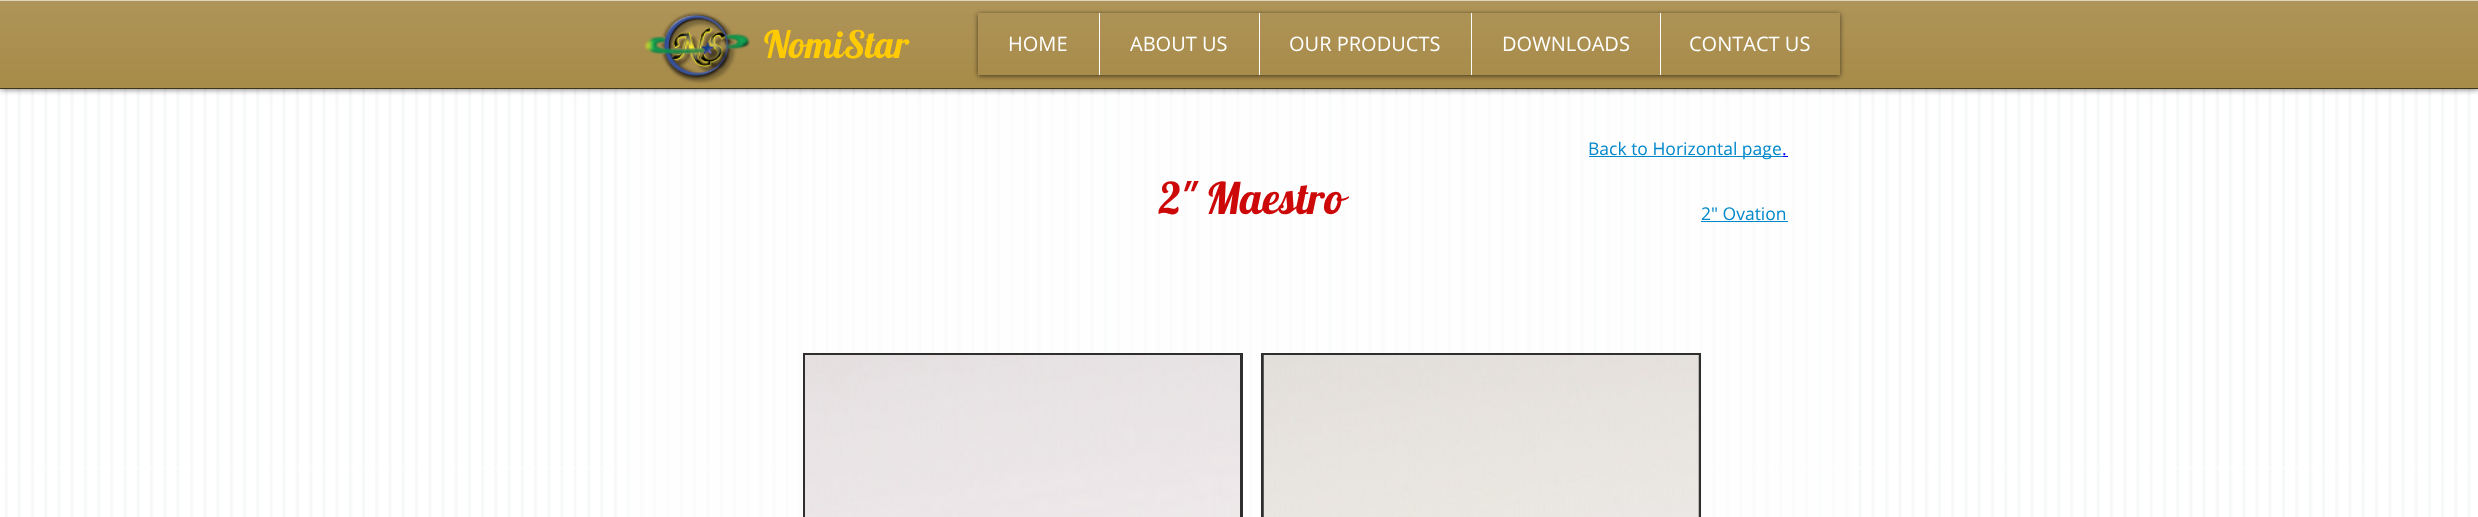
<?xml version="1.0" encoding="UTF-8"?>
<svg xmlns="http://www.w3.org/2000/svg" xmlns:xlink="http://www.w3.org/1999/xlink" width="2478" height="517">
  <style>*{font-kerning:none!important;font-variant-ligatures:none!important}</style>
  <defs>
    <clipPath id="clip1"><path d="M 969 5 h 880 v 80 h -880 z m 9 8 h 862 v 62 h -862 z" clip-rule="evenodd" /></clipPath>
  </defs>
  <rect width="100%" height="100%" fill="#ffffff" />
  <image x="5" y="89" width="2466" height="428" xlink:href="image5.png" />
  <rect width="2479" height="89" fill="#000000" fill-opacity="0.6" filter="blur(3px)" />
  <rect y="1" width="2478" height="87" fill="#93701f" />
  <image x="0" y="1" width="2478" height="87" xlink:href="image2.png" />
  <image x="644" y="11" width="106" height="72" xlink:href="image1.png" />
  <rect y="88" width="2478" height="1" fill="#413519" />
  <rect width="2478" height="1" fill="#dfd5bd" />
  <g clip-path="url(#clip1)">
    <rect x="978" y="14" width="862" height="62" fill="#000000" fill-opacity="0.6" filter="blur(2.5px)" />
  </g>
  <rect x="1099" y="13" width="1" height="62" fill="#ffffff" />
  <rect x="1259" y="13" width="1" height="62" fill="#ffffff" />
  <rect x="1471" y="13" width="1" height="62" fill="#ffffff" />
  <rect x="1660" y="13" width="1" height="62" fill="#ffffff" />
  <rect x="628" y="95" width="1225" height="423" rx="1" fill="#fdfdfe" fill-opacity="0.6" />
  <rect x="1589" y="156" width="194" height="1" fill="#0088cb" />
  <rect x="1783" y="156" width="5" height="1" fill="#0000ff" />
  <rect x="1701" y="221" width="87" height="1" fill="#0088cb" />
  <rect x="803" y="353" width="440" height="164" fill="#2f2e2e" />
  <image x="805" y="355" width="435" height="162" xlink:href="image3.png" />
  <rect x="1261" y="353" width="440" height="164" fill="#2f2e2e" />
  <image x="1263" y="355" width="436" height="162" xlink:href="image4.png" />
  <text x="764" y="58" style="font-family: Lobster; font-size: 37.5px; fill: #ffcb05">NomiStar</text>
  <text x="1008" y="51" style="font-family: Open Sans; font-size: 20px; fill: #ffffff">HOME</text>
  <text x="1130" y="51" style="font-family: Open Sans; font-size: 20px; fill: #ffffff">ABOUT US</text>
  <text x="1289" y="51" style="font-family: Open Sans; font-size: 20px; fill: #ffffff">OUR PRODUCTS</text>
  <text x="1502" y="51" style="font-family: Open Sans; font-size: 20px; fill: #ffffff">DOWNLOADS</text>
  <text x="1689" y="51" style="font-family: Open Sans; font-size: 20px; fill: #ffffff">CONTACT US</text>
  <text x="1588" y="155" style="font-family: Open Sans; font-size: 17.5px; fill: #0088cb">Back to Horizontal page</text>
  <text x="1782" y="155" style="font-family: Open Sans; font-size: 17.5px; fill: #0000ff">.</text>
  <text x="1159" y="214" style="font-family: Lobster; font-size: 43.75px; fill: #cc0808">2" Maestro</text>
  <text x="1701" y="220" style="font-family: Open Sans; font-size: 17.5px; fill: #0088cb">2" Ovation</text>
</svg>
